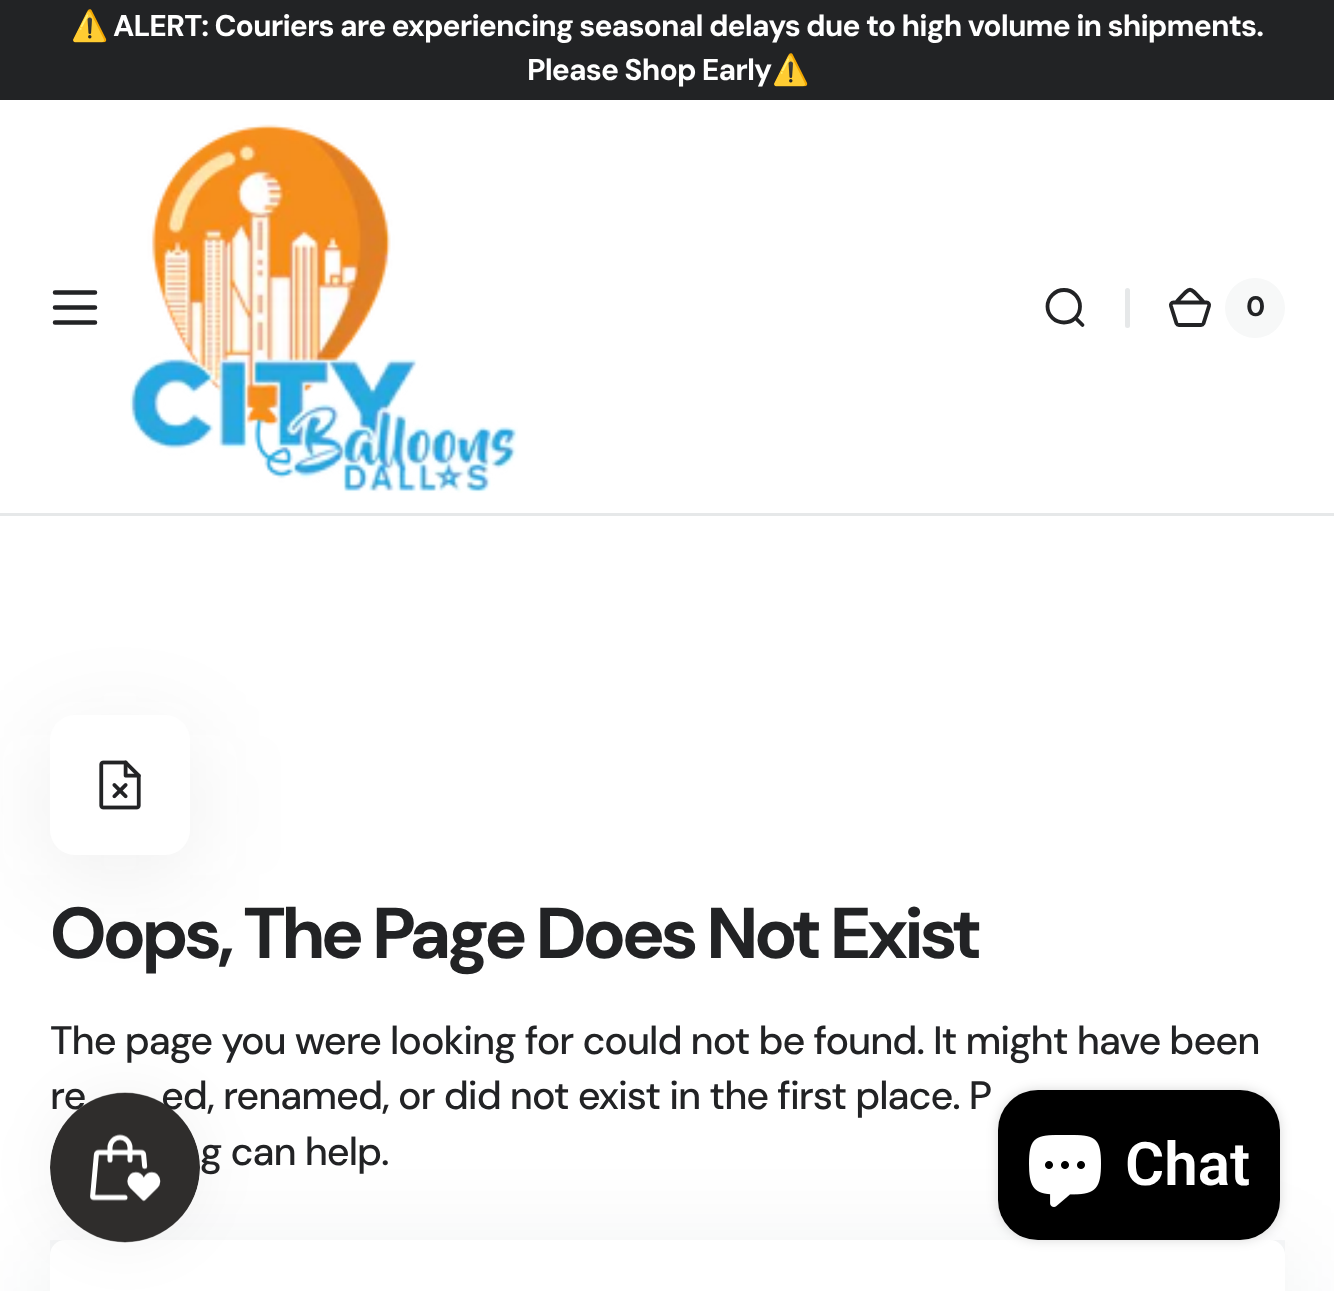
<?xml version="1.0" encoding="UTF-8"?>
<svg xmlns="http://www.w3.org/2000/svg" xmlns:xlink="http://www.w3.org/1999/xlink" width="1334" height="1291">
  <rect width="100%" height="100%" fill="#ffffff" />
  <rect width="1334" height="100" fill="#222325" />
  <path d="M 55 292.5 h 40 m -40 15 h 40 m -40 15 h 40" fill="none" stroke="#222325" stroke-width="4.5" stroke-linecap="round" />
  <image x="130" y="124" width="388" height="369" xlink:href="image1.png" />
  <path d="M 1075.5 318 l 7 7 m -2.5 -18.5 c 0 9 -7 16 -16 16 c -9 0 -16.5 -7 -16.5 -16 c 0 -9 7.5 -16.5 16.5 -16.5 c 9 0 16 7.5 16 16.5 z" fill="none" stroke="#222325" stroke-width="3.8" stroke-linecap="round" />
  <rect x="1125" y="288" width="5" height="40" rx="2.5" fill="#e6e8e9" />
  <path d="M 1176 302.5 c 15.5 -17 12.5 -17 28 0 m 5 3.5 l -5.5 17.5 c -0.5 1 -1 1.5 -2.5 1.5 h -22 c -1 0 -2 -0.5 -2.5 -1.5 l -5.5 -17.5 c -0.5 -2 0.5 -3.5 2.5 -3.5 h 33 c 2 0 3 1.5 2.5 3.5 z" fill="none" stroke="#222325" stroke-width="3.8" stroke-linecap="round" stroke-linejoin="round" />
  <circle cx="1255" cy="308" r="30" fill="#f7f8f8" />
  <rect y="513" width="1334" height="3" fill="#e6e8e9" />
  <rect x="50" y="735" width="140" height="140" rx="25" fill="#222325" fill-opacity="0.08" filter="blur(50px)" />
  <rect x="50" y="715" width="140" height="140" rx="25" fill="#ffffff" />
  <image x="99" y="760" width="42" height="50" xlink:href="image2.png" />
  <rect x="50" y="1240" width="1235" height="15" fill="#f7f8f8" />
  <rect x="50" y="1260" width="1235" height="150" rx="15" fill="#011624" fill-opacity="0.08" filter="blur(50px)" />
  <rect x="50" y="1240" width="1235" height="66" rx="15" fill="#ffffff" />
  <rect x="50" y="1093" width="150" height="150" rx="75" fill="#000000" fill-opacity="0.05" filter="blur(31px)" />
  <rect x="998" y="1090" width="282" height="150" rx="40" fill="#000000" fill-opacity="0.15" filter="blur(6px)" />
  <rect x="998" y="1090" width="282" height="150" rx="40" fill="#000000" />
  <image x="1029" y="1135" width="72" height="72" xlink:href="image4.png" />
  <text x="71" y="36" style="font-family: Noto Color Emoji; font-size: 30px; font-weight: bold; letter-spacing: -0.9px; fill: #ffffff">⚠️</text>
  <text x="113" y="36" style="font-family: 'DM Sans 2'; font-size: 30px; font-weight: bold; letter-spacing: -0.9px; fill: #ffffff">ALERT: Couriers are experiencing seasonal delays due to high volume in shipments.</text>
  <text x="527" y="80" style="font-family: 'DM Sans 2'; font-size: 30px; font-weight: bold; letter-spacing: -0.9px; fill: #ffffff">Please Shop Early</text>
  <text x="772" y="80" style="font-family: Noto Color Emoji; font-size: 30px; font-weight: bold; letter-spacing: -0.9px; fill: #ffffff">⚠️</text>
  <text x="1246" y="316" style="font-family: 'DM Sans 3'; font-size: 28px; font-weight: bold; letter-spacing: -1.03px; fill: #222325">0</text>
  <text x="50" y="958" style="font-family: DM Sans; font-size: 71.9px; font-weight: bold; letter-spacing: -3.6px; fill: #222325">Oops, The Page Does Not Exist</text>
  <text x="50" y="1054" style="font-family: DM Sans; font-size: 39.5px; font-weight: 500; letter-spacing: -1.03px; fill: #222325">The page you were looking for could not be found. It might have been</text>
  <text x="50" y="1109" style="font-family: DM Sans; font-size: 39.5px; font-weight: 500; letter-spacing: -1.03px; fill: #222325">re</text>
  <text x="161" y="1109" style="font-family: DM Sans; font-size: 39.5px; font-weight: 500; letter-spacing: -1.03px; fill: #222325">ed, renamed, or did not exist in the first place. P</text>
  <text x="200" y="1165" style="font-family: DM Sans; font-size: 39.5px; font-weight: 500; letter-spacing: -1.03px; fill: #222325">g can help.</text>
  <image x="50" y="1092" width="150" height="151" xlink:href="image3.png" />
  <text x="1125" y="1185" style="font-family: Roboto; font-size: 60px; font-weight: 600; fill: #ffffff">Chat</text>
</svg>
